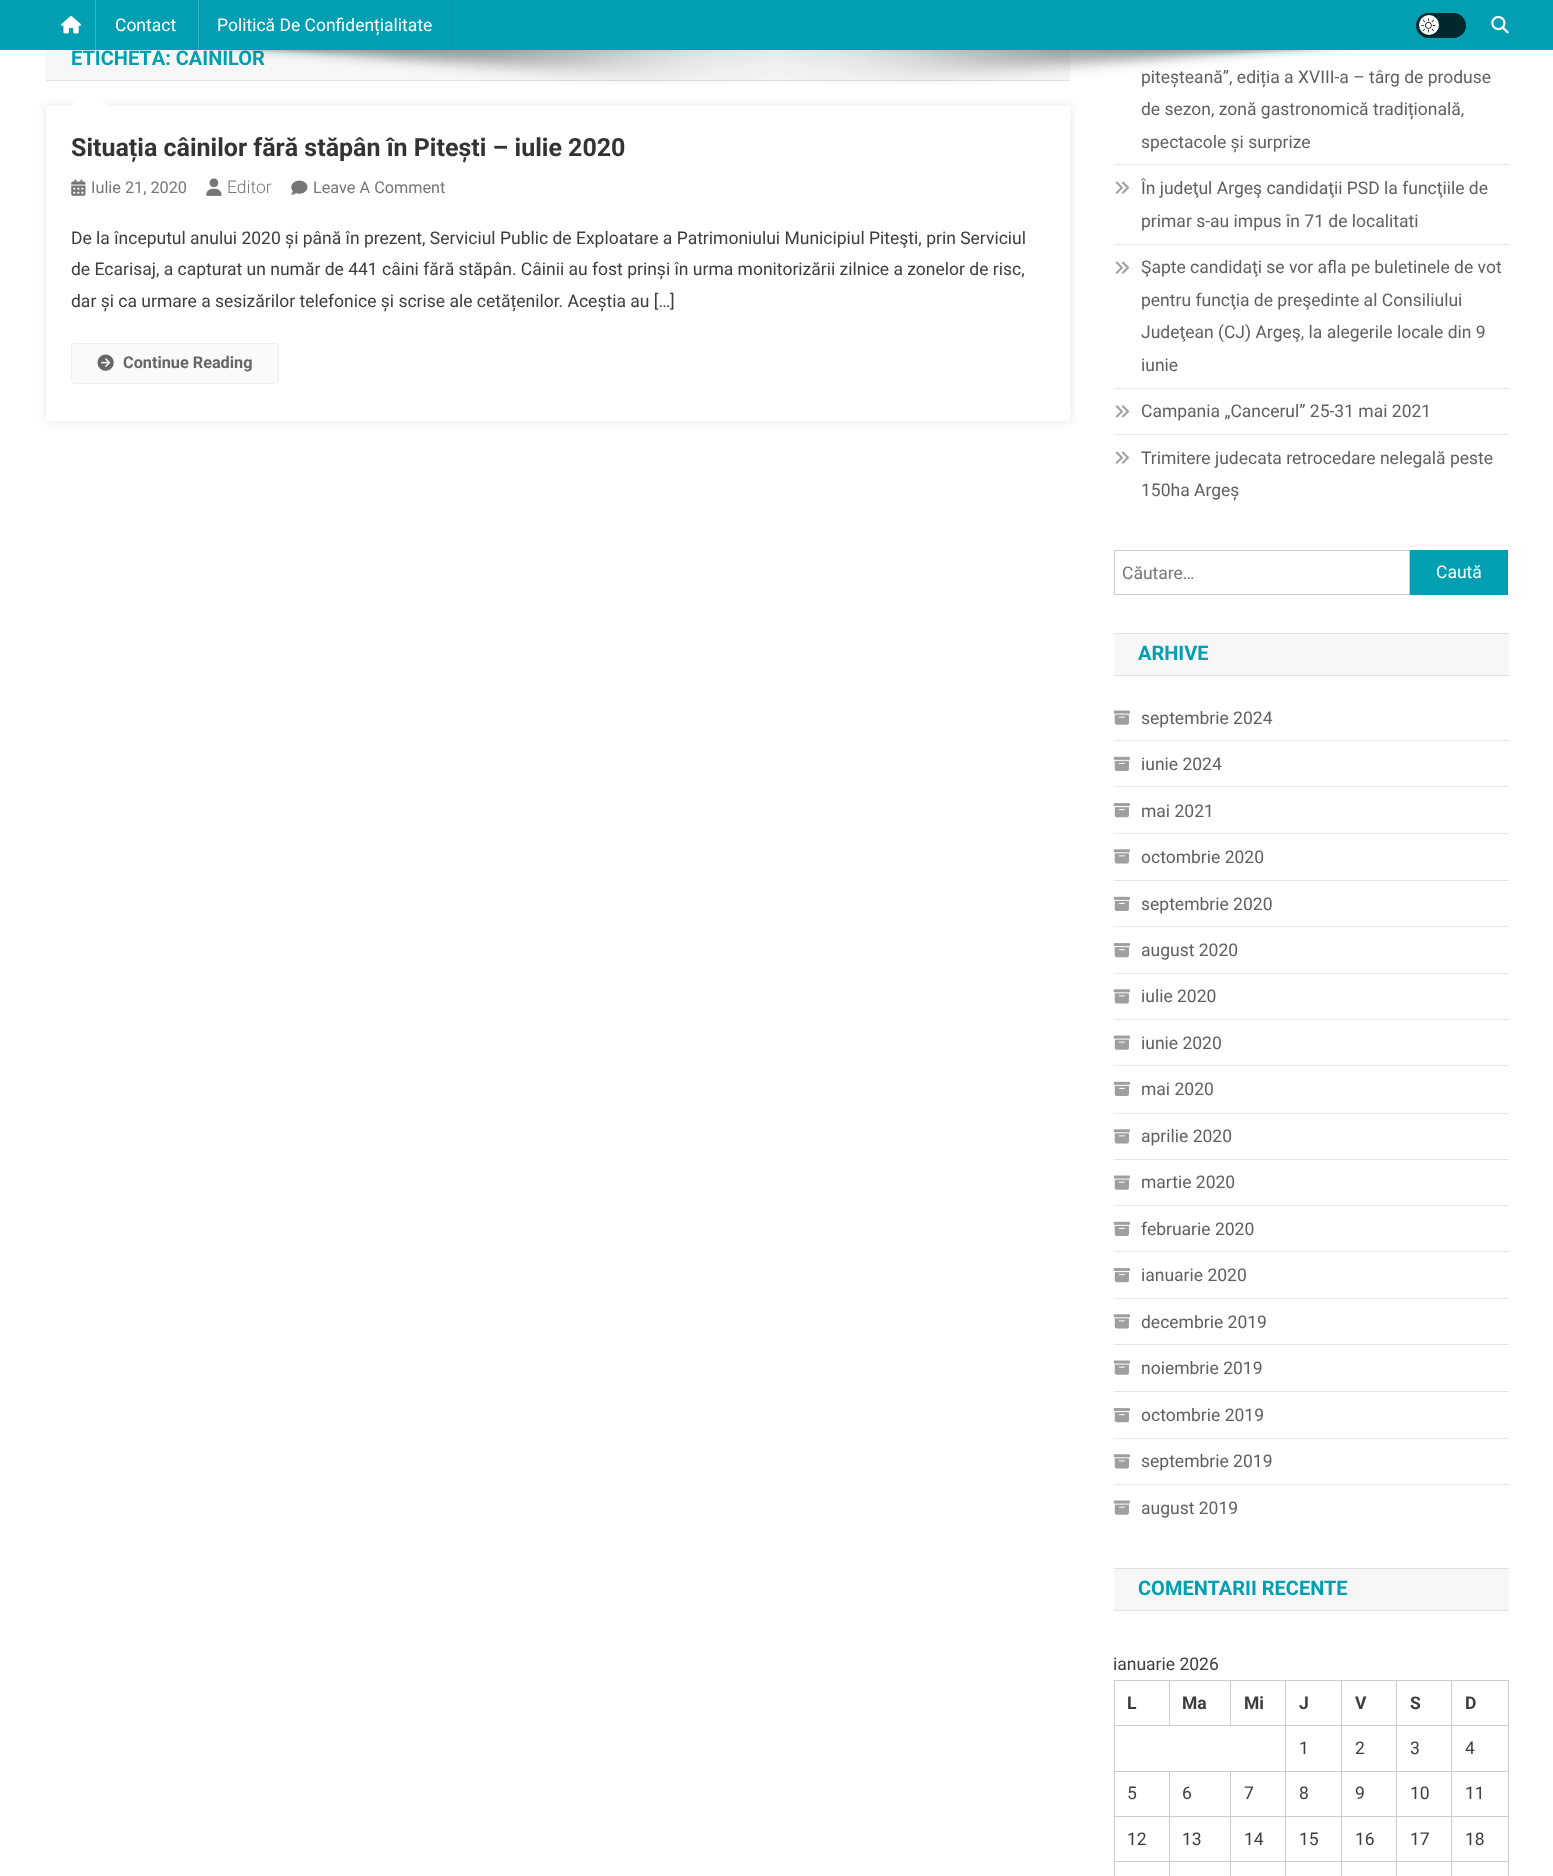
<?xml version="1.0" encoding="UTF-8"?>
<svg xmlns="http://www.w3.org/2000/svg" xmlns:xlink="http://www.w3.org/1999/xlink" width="1553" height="1876">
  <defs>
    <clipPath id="clip1"><path d="M 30 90 h 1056 v 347 h -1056 z m 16 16 h 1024 v 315 h -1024 z" clip-rule="evenodd" /></clipPath>
  </defs>
  <rect width="100%" height="100%" fill="#ffffff" />
  <rect width="1553" height="50" fill="#029fb2" />
  <image x="61" y="16" width="20" height="18" xlink:href="image1.png" />
  <rect x="451" width="1" height="50" fill="#0292a4" />
  <rect x="1416" y="13" width="50" height="25" rx="12.5" fill="#01282d" />
  <circle cx="1429" cy="25" r="10" fill="#ffffff" />
  <image x="1421" y="18" width="15" height="15" xlink:href="image2.png" />
  <image x="1491" y="15" width="18" height="19" xlink:href="image3.png" />
  <rect x="46" y="50" width="1024" height="30" fill="#f7f7f7" />
  <rect x="46" y="80" width="1024" height="1" fill="#e1e1e1" />
  <g clip-path="url(#clip1)">
    <rect x="46" y="106" width="1024" height="315" fill="#000000" fill-opacity="0.1" filter="blur(5px)" />
  </g>
  <path d="M 109 106 h -38 l 19 -18.5 z" fill="#ffffff" />
  <image x="71" y="179" width="15" height="17" xlink:href="image5.png" />
  <image x="206" y="178" width="16" height="18" xlink:href="image6.png" />
  <image x="291" y="180" width="17" height="15" xlink:href="image7.png" />
  <rect x="71.5" y="343.5" width="207" height="40" rx="3.5" fill="#fafafa" stroke="#eeeeee" />
  <image x="97" y="354" width="17" height="17" xlink:href="image8.png" />
  <rect x="1114" y="164" width="395" height="1" fill="#e6e6e6" />
  <rect x="1114" y="244" width="395" height="1" fill="#e6e6e6" />
  <image x="1115" y="181" width="14" height="13" xlink:href="image9.png" />
  <rect x="1114" y="388" width="395" height="1" fill="#e6e6e6" />
  <image x="1115" y="261" width="14" height="13" xlink:href="image9.png" />
  <rect x="1114" y="434" width="395" height="1" fill="#e6e6e6" />
  <image x="1115" y="405" width="14" height="13" xlink:href="image10.png" />
  <image x="1115" y="451" width="14" height="13" xlink:href="image9.png" />
  <rect x="1114.5" y="550.5" width="295" height="44" fill="none" stroke="#cccccc" />
  <rect x="1410" y="550" width="98" height="45" fill="#029fb2" />
  <rect x="1114" y="634" width="395" height="41" fill="#f7f7f7" />
  <rect x="1114" y="633" width="395" height="1" fill="#e1e1e1" />
  <rect x="1114" y="675" width="395" height="1" fill="#e1e1e1" />
  <rect x="1114" y="740" width="395" height="1" fill="#e6e6e6" />
  <image x="1113" y="710" width="17" height="15" xlink:href="image11.png" />
  <rect x="1114" y="786" width="395" height="1" fill="#e6e6e6" />
  <image x="1113" y="756" width="17" height="15" xlink:href="image12.png" />
  <rect x="1114" y="833" width="395" height="1" fill="#e6e6e6" />
  <image x="1113" y="803" width="17" height="15" xlink:href="image13.png" />
  <rect x="1114" y="880" width="395" height="1" fill="#e6e6e6" />
  <image x="1113" y="849" width="17" height="15" xlink:href="image14.png" />
  <rect x="1114" y="926" width="395" height="1" fill="#e6e6e6" />
  <image x="1113" y="896" width="17" height="15" xlink:href="image12.png" />
  <rect x="1114" y="973" width="395" height="1" fill="#e6e6e6" />
  <image x="1113" y="943" width="17" height="15" xlink:href="image13.png" />
  <rect x="1114" y="1019" width="395" height="1" fill="#e6e6e6" />
  <image x="1113" y="989" width="17" height="15" xlink:href="image14.png" />
  <rect x="1114" y="1065" width="395" height="1" fill="#e6e6e6" />
  <image x="1113" y="1035" width="17" height="15" xlink:href="image11.png" />
  <rect x="1114" y="1113" width="395" height="1" fill="#e6e6e6" />
  <image x="1113" y="1081" width="17" height="15" xlink:href="image12.png" />
  <rect x="1114" y="1159" width="395" height="1" fill="#e6e6e6" />
  <image x="1113" y="1129" width="17" height="15" xlink:href="image14.png" />
  <rect x="1114" y="1205" width="395" height="1" fill="#e6e6e6" />
  <image x="1113" y="1175" width="17" height="15" xlink:href="image11.png" />
  <rect x="1114" y="1251" width="395" height="1" fill="#e6e6e6" />
  <image x="1113" y="1221" width="17" height="15" xlink:href="image12.png" />
  <rect x="1114" y="1298" width="395" height="1" fill="#e6e6e6" />
  <image x="1113" y="1268" width="17" height="15" xlink:href="image13.png" />
  <rect x="1114" y="1344" width="395" height="1" fill="#e6e6e6" />
  <image x="1113" y="1314" width="17" height="15" xlink:href="image14.png" />
  <rect x="1114" y="1391" width="395" height="1" fill="#e6e6e6" />
  <image x="1113" y="1360" width="17" height="15" xlink:href="image11.png" />
  <rect x="1114" y="1438" width="395" height="1" fill="#e6e6e6" />
  <image x="1113" y="1408" width="17" height="15" xlink:href="image13.png" />
  <rect x="1114" y="1484" width="395" height="1" fill="#e6e6e6" />
  <image x="1113" y="1454" width="17" height="15" xlink:href="image14.png" />
  <image x="1113" y="1500" width="17" height="15" xlink:href="image11.png" />
  <rect x="1114" y="1569" width="395" height="41" fill="#f7f7f7" />
  <rect x="1114" y="1568" width="395" height="1" fill="#e1e1e1" />
  <rect x="1114" y="1610" width="395" height="1" fill="#e1e1e1" />
  <rect x="1451" y="1680" width="58" height="1" fill="#cccccc" />
  <rect x="1451" y="1725" width="58" height="1" fill="#cccccc" />
  <rect x="1451" y="1771" width="58" height="1" fill="#cccccc" />
  <rect x="1451" y="1816" width="58" height="1" fill="#cccccc" />
  <rect x="1451" y="1861" width="58" height="1" fill="#cccccc" />
  <rect x="1451" y="1861" width="1" height="15" fill="#cccccc" />
  <rect x="1396" y="1861" width="57" height="1" fill="#cccccc" />
  <rect x="1451" y="1816" width="1" height="47" fill="#cccccc" />
  <rect x="1396" y="1816" width="57" height="1" fill="#cccccc" />
  <rect x="1451" y="1771" width="1" height="47" fill="#cccccc" />
  <rect x="1396" y="1771" width="57" height="1" fill="#cccccc" />
  <rect x="1451" y="1725" width="1" height="48" fill="#cccccc" />
  <rect x="1396" y="1725" width="57" height="1" fill="#cccccc" />
  <rect x="1451" y="1680" width="1" height="46" fill="#cccccc" />
  <rect x="1396" y="1680" width="57" height="1" fill="#cccccc" />
  <rect x="1396" y="1861" width="1" height="15" fill="#cccccc" />
  <rect x="1341" y="1861" width="57" height="1" fill="#cccccc" />
  <rect x="1396" y="1816" width="1" height="47" fill="#cccccc" />
  <rect x="1341" y="1816" width="57" height="1" fill="#cccccc" />
  <rect x="1396" y="1771" width="1" height="47" fill="#cccccc" />
  <rect x="1341" y="1771" width="57" height="1" fill="#cccccc" />
  <rect x="1396" y="1725" width="1" height="48" fill="#cccccc" />
  <rect x="1341" y="1725" width="57" height="1" fill="#cccccc" />
  <rect x="1396" y="1680" width="1" height="46" fill="#cccccc" />
  <rect x="1341" y="1680" width="57" height="1" fill="#cccccc" />
  <rect x="1341" y="1861" width="1" height="15" fill="#cccccc" />
  <rect x="1285" y="1861" width="58" height="1" fill="#cccccc" />
  <rect x="1341" y="1816" width="1" height="47" fill="#cccccc" />
  <rect x="1285" y="1816" width="58" height="1" fill="#cccccc" />
  <rect x="1341" y="1771" width="1" height="47" fill="#cccccc" />
  <rect x="1285" y="1771" width="58" height="1" fill="#cccccc" />
  <rect x="1341" y="1725" width="1" height="48" fill="#cccccc" />
  <rect x="1285" y="1725" width="58" height="1" fill="#cccccc" />
  <rect x="1341" y="1680" width="1" height="46" fill="#cccccc" />
  <rect x="1285" y="1680" width="58" height="1" fill="#cccccc" />
  <rect x="1285" y="1861" width="1" height="15" fill="#cccccc" />
  <rect x="1230" y="1861" width="56" height="1" fill="#cccccc" />
  <rect x="1285" y="1816" width="1" height="47" fill="#cccccc" />
  <rect x="1230" y="1816" width="56" height="1" fill="#cccccc" />
  <rect x="1285" y="1771" width="1" height="47" fill="#cccccc" />
  <rect x="1230" y="1771" width="56" height="1" fill="#cccccc" />
  <rect x="1285" y="1725" width="1" height="48" fill="#cccccc" />
  <rect x="1114" y="1725" width="172" height="1" fill="#cccccc" />
  <rect x="1285" y="1680" width="1" height="46" fill="#cccccc" />
  <rect x="1230" y="1680" width="56" height="1" fill="#cccccc" />
  <rect x="1230" y="1680" width="1" height="46" fill="#cccccc" />
  <rect x="1169" y="1680" width="62" height="1" fill="#cccccc" />
  <rect x="1169" y="1680" width="1" height="46" fill="#cccccc" />
  <rect x="1114" y="1680" width="56" height="1" fill="#cccccc" />
  <rect x="1230" y="1861" width="1" height="15" fill="#cccccc" />
  <rect x="1169" y="1861" width="62" height="1" fill="#cccccc" />
  <rect x="1230" y="1816" width="1" height="47" fill="#cccccc" />
  <rect x="1169" y="1816" width="62" height="1" fill="#cccccc" />
  <rect x="1230" y="1771" width="1" height="47" fill="#cccccc" />
  <rect x="1169" y="1771" width="62" height="1" fill="#cccccc" />
  <rect x="1169" y="1861" width="1" height="15" fill="#cccccc" />
  <rect x="1114" y="1861" width="56" height="1" fill="#cccccc" />
  <rect x="1169" y="1816" width="1" height="47" fill="#cccccc" />
  <rect x="1114" y="1816" width="56" height="1" fill="#cccccc" />
  <rect x="1169" y="1771" width="1" height="47" fill="#cccccc" />
  <rect x="1114" y="1771" width="56" height="1" fill="#cccccc" />
  <rect x="1114" y="1861" width="1" height="15" fill="#cccccc" />
  <rect x="1114" y="1816" width="1" height="47" fill="#cccccc" />
  <rect x="1114" y="1771" width="1" height="47" fill="#cccccc" />
  <rect x="1114" y="1725" width="1" height="48" fill="#cccccc" />
  <rect x="1114" y="1680" width="1" height="46" fill="#cccccc" />
  <rect x="1508" y="1861" width="1" height="15" fill="#cccccc" />
  <rect x="1508" y="1816" width="1" height="47" fill="#cccccc" />
  <rect x="1508" y="1771" width="1" height="47" fill="#cccccc" />
  <rect x="1508" y="1725" width="1" height="48" fill="#cccccc" />
  <rect x="1508" y="1680" width="1" height="46" fill="#cccccc" />
  <text x="115" y="31" style="font-family: Roboto; font-size: 17.5px; fill: #ffffff">Contact</text>
  <text x="217" y="31" style="font-family: Roboto; font-size: 17.5px; fill: #ffffff">Politică De Confidențialitate</text>
  <text x="71" y="65" style="font-family: Roboto; font-size: 20px; font-weight: bold; fill: #029fb2">ETICHETĂ: CAINILOR</text>
  <rect x="198" width="1" height="50" fill="#35b2c1" />
  <rect x="95" width="1" height="50" fill="#35b2c1" />
  <rect x="195" width="1" height="50" fill="#0292a4" />
  <text x="71" y="156" style="font-family: Roboto; font-size: 25px; font-weight: bold; fill: #333333">Situația câinilor fără stăpân în Pitești – iulie 2020</text>
  <text x="91" y="193" style="font-family: Roboto; font-size: 16.25px; fill: #767676">Iulie 21, 2020</text>
  <text x="227" y="193" style="font-family: Roboto; font-size: 17.5px; font-weight: 300; fill: #767676">Editor</text>
  <text x="313" y="193" style="font-family: Roboto; font-size: 16.25px; fill: #767676">Leave A Comment</text>
  <text x="71" y="244" style="font-family: Roboto; font-size: 17.5px; fill: #3d3d3d">De la începutul anului 2020 și până în prezent, Serviciul Public de Exploatare a Patrimoniului Municipiul Piteşti, prin Serviciul</text>
  <text x="71" y="275" style="font-family: Roboto; font-size: 17.5px; fill: #3d3d3d">de Ecarisaj, a capturat un număr de 441 câini fără stăpân. Câinii au fost prinși în urma monitorizării zilnice a zonelor de risc,</text>
  <text x="71" y="307" style="font-family: Roboto; font-size: 17.5px; fill: #3d3d3d">dar și ca urmare a sesizărilor telefonice și scrise ale cetățenilor. Aceștia au […]</text>
  <text x="123" y="368" style="font-family: Roboto; font-size: 16.25px; font-weight: bold; fill: #666666">Continue Reading</text>
  <text x="1141" y="83" style="font-family: Roboto; font-size: 17.5px; fill: #5f5f5f">piteșteană”, ediția a XVIII-a – târg de produse</text>
  <image x="199" y="50" width="1155" height="34" xlink:href="image4.png" />
  <text x="1141" y="115" style="font-family: Roboto; font-size: 17.5px; fill: #5f5f5f">de sezon, zonă gastronomică tradițională,</text>
  <text x="1141" y="148" style="font-family: Roboto; font-size: 17.5px; fill: #5f5f5f">spectacole și surprize</text>
  <text x="1141" y="194" style="font-family: Roboto; font-size: 17.5px; fill: #5f5f5f">În judeţul Argeş candidaţii PSD la funcţiile de</text>
  <text x="1141" y="227" style="font-family: Roboto; font-size: 17.5px; fill: #5f5f5f">primar s-au impus în 71 de localitati</text>
  <text x="1141" y="273" style="font-family: Roboto; font-size: 17.5px; fill: #5f5f5f">Şapte candidaţi se vor afla pe buletinele de vot</text>
  <text x="1141" y="306" style="font-family: Roboto; font-size: 17.5px; fill: #5f5f5f">pentru funcţia de preşedinte al Consiliului</text>
  <text x="1141" y="338" style="font-family: Roboto; font-size: 17.5px; fill: #5f5f5f">Judeţean (CJ) Argeş, la alegerile locale din 9</text>
  <text x="1141" y="371" style="font-family: Roboto; font-size: 17.5px; fill: #5f5f5f">iunie</text>
  <text x="1141" y="417" style="font-family: Roboto; font-size: 17.5px; fill: #5f5f5f">Campania „Cancerul” 25-31 mai 2021</text>
  <text x="1141" y="464" style="font-family: Roboto; font-size: 17.5px; fill: #5f5f5f">Trimitere judecata retrocedare nelegală peste</text>
  <text x="1141" y="496" style="font-family: Roboto; font-size: 17.5px; fill: #5f5f5f">150ha Argeș</text>
  <text x="1122" y="579" style="font-family: Roboto; font-size: 17.5px; fill: #767676">Căutare…</text>
  <text x="1436" y="578" style="font-family: Roboto; font-size: 17.5px; fill: #ffffff">Caută</text>
  <text x="1138" y="660" style="font-family: Roboto; font-size: 20px; font-weight: bold; fill: #029fb2">ARHIVE</text>
  <text x="1141" y="724" style="font-family: Roboto; font-size: 17.5px; fill: #5f5f5f">septembrie 2024</text>
  <text x="1141" y="770" style="font-family: Roboto; font-size: 17.5px; fill: #5f5f5f">iunie 2024</text>
  <text x="1141" y="817" style="font-family: Roboto; font-size: 17.5px; fill: #5f5f5f">mai 2021</text>
  <text x="1141" y="863" style="font-family: Roboto; font-size: 17.5px; fill: #5f5f5f">octombrie 2020</text>
  <text x="1141" y="910" style="font-family: Roboto; font-size: 17.5px; fill: #5f5f5f">septembrie 2020</text>
  <text x="1141" y="956" style="font-family: Roboto; font-size: 17.5px; fill: #5f5f5f">august 2020</text>
  <text x="1141" y="1002" style="font-family: Roboto; font-size: 17.5px; fill: #5f5f5f">iulie 2020</text>
  <text x="1141" y="1049" style="font-family: Roboto; font-size: 17.5px; fill: #5f5f5f">iunie 2020</text>
  <text x="1141" y="1095" style="font-family: Roboto; font-size: 17.5px; fill: #5f5f5f">mai 2020</text>
  <text x="1141" y="1142" style="font-family: Roboto; font-size: 17.5px; fill: #5f5f5f">aprilie 2020</text>
  <text x="1141" y="1188" style="font-family: Roboto; font-size: 17.5px; fill: #5f5f5f">martie 2020</text>
  <text x="1141" y="1235" style="font-family: Roboto; font-size: 17.5px; fill: #5f5f5f">februarie 2020</text>
  <text x="1141" y="1281" style="font-family: Roboto; font-size: 17.5px; fill: #5f5f5f">ianuarie 2020</text>
  <text x="1141" y="1328" style="font-family: Roboto; font-size: 17.5px; fill: #5f5f5f">decembrie 2019</text>
  <text x="1141" y="1374" style="font-family: Roboto; font-size: 17.5px; fill: #5f5f5f">noiembrie 2019</text>
  <text x="1141" y="1421" style="font-family: Roboto; font-size: 17.5px; fill: #5f5f5f">octombrie 2019</text>
  <text x="1141" y="1467" style="font-family: Roboto; font-size: 17.5px; fill: #5f5f5f">septembrie 2019</text>
  <text x="1141" y="1514" style="font-family: Roboto; font-size: 17.5px; fill: #5f5f5f">august 2019</text>
  <text x="1138" y="1595" style="font-family: Roboto; font-size: 20px; font-weight: bold; fill: #029fb2">COMENTARII RECENTE</text>
  <text x="1113" y="1670" style="font-family: Roboto; font-size: 17.5px; fill: #3d3d3d">ianuarie 2026</text>
  <text x="1127" y="1709" style="font-family: Roboto; font-size: 17.5px; font-weight: bold; fill: #3d3d3d">L</text>
  <text x="1182" y="1709" style="font-family: Roboto; font-size: 17.5px; font-weight: bold; fill: #3d3d3d">Ma</text>
  <text x="1244" y="1709" style="font-family: Roboto; font-size: 17.5px; font-weight: bold; fill: #3d3d3d">Mi</text>
  <text x="1299" y="1709" style="font-family: Roboto; font-size: 17.5px; font-weight: bold; fill: #3d3d3d">J</text>
  <text x="1355" y="1709" style="font-family: Roboto; font-size: 17.5px; font-weight: bold; fill: #3d3d3d">V</text>
  <text x="1410" y="1709" style="font-family: Roboto; font-size: 17.5px; font-weight: bold; fill: #3d3d3d">S</text>
  <text x="1465" y="1709" style="font-family: Roboto; font-size: 17.5px; font-weight: bold; fill: #3d3d3d">D</text>
  <text x="1299" y="1754" style="font-family: Roboto; font-size: 17.5px; fill: #3d3d3d">1</text>
  <text x="1355" y="1754" style="font-family: Roboto; font-size: 17.5px; fill: #3d3d3d">2</text>
  <text x="1410" y="1754" style="font-family: Roboto; font-size: 17.5px; fill: #3d3d3d">3</text>
  <text x="1465" y="1754" style="font-family: Roboto; font-size: 17.5px; fill: #3d3d3d">4</text>
  <text x="1127" y="1799" style="font-family: Roboto; font-size: 17.5px; fill: #3d3d3d">5</text>
  <text x="1182" y="1799" style="font-family: Roboto; font-size: 17.5px; fill: #3d3d3d">6</text>
  <text x="1244" y="1799" style="font-family: Roboto; font-size: 17.5px; fill: #3d3d3d">7</text>
  <text x="1299" y="1799" style="font-family: Roboto; font-size: 17.5px; fill: #3d3d3d">8</text>
  <text x="1355" y="1799" style="font-family: Roboto; font-size: 17.5px; fill: #3d3d3d">9</text>
  <text x="1410" y="1799" style="font-family: Roboto; font-size: 17.5px; fill: #3d3d3d">10</text>
  <text x="1465" y="1799" style="font-family: Roboto; font-size: 17.5px; fill: #3d3d3d">11</text>
  <text x="1127" y="1845" style="font-family: Roboto; font-size: 17.5px; fill: #3d3d3d">12</text>
  <text x="1182" y="1845" style="font-family: Roboto; font-size: 17.5px; fill: #3d3d3d">13</text>
  <text x="1244" y="1845" style="font-family: Roboto; font-size: 17.5px; fill: #3d3d3d">14</text>
  <text x="1299" y="1845" style="font-family: Roboto; font-size: 17.5px; fill: #3d3d3d">15</text>
  <text x="1355" y="1845" style="font-family: Roboto; font-size: 17.5px; fill: #3d3d3d">16</text>
  <text x="1410" y="1845" style="font-family: Roboto; font-size: 17.5px; fill: #3d3d3d">17</text>
  <text x="1465" y="1845" style="font-family: Roboto; font-size: 17.5px; fill: #3d3d3d">18</text>
</svg>
